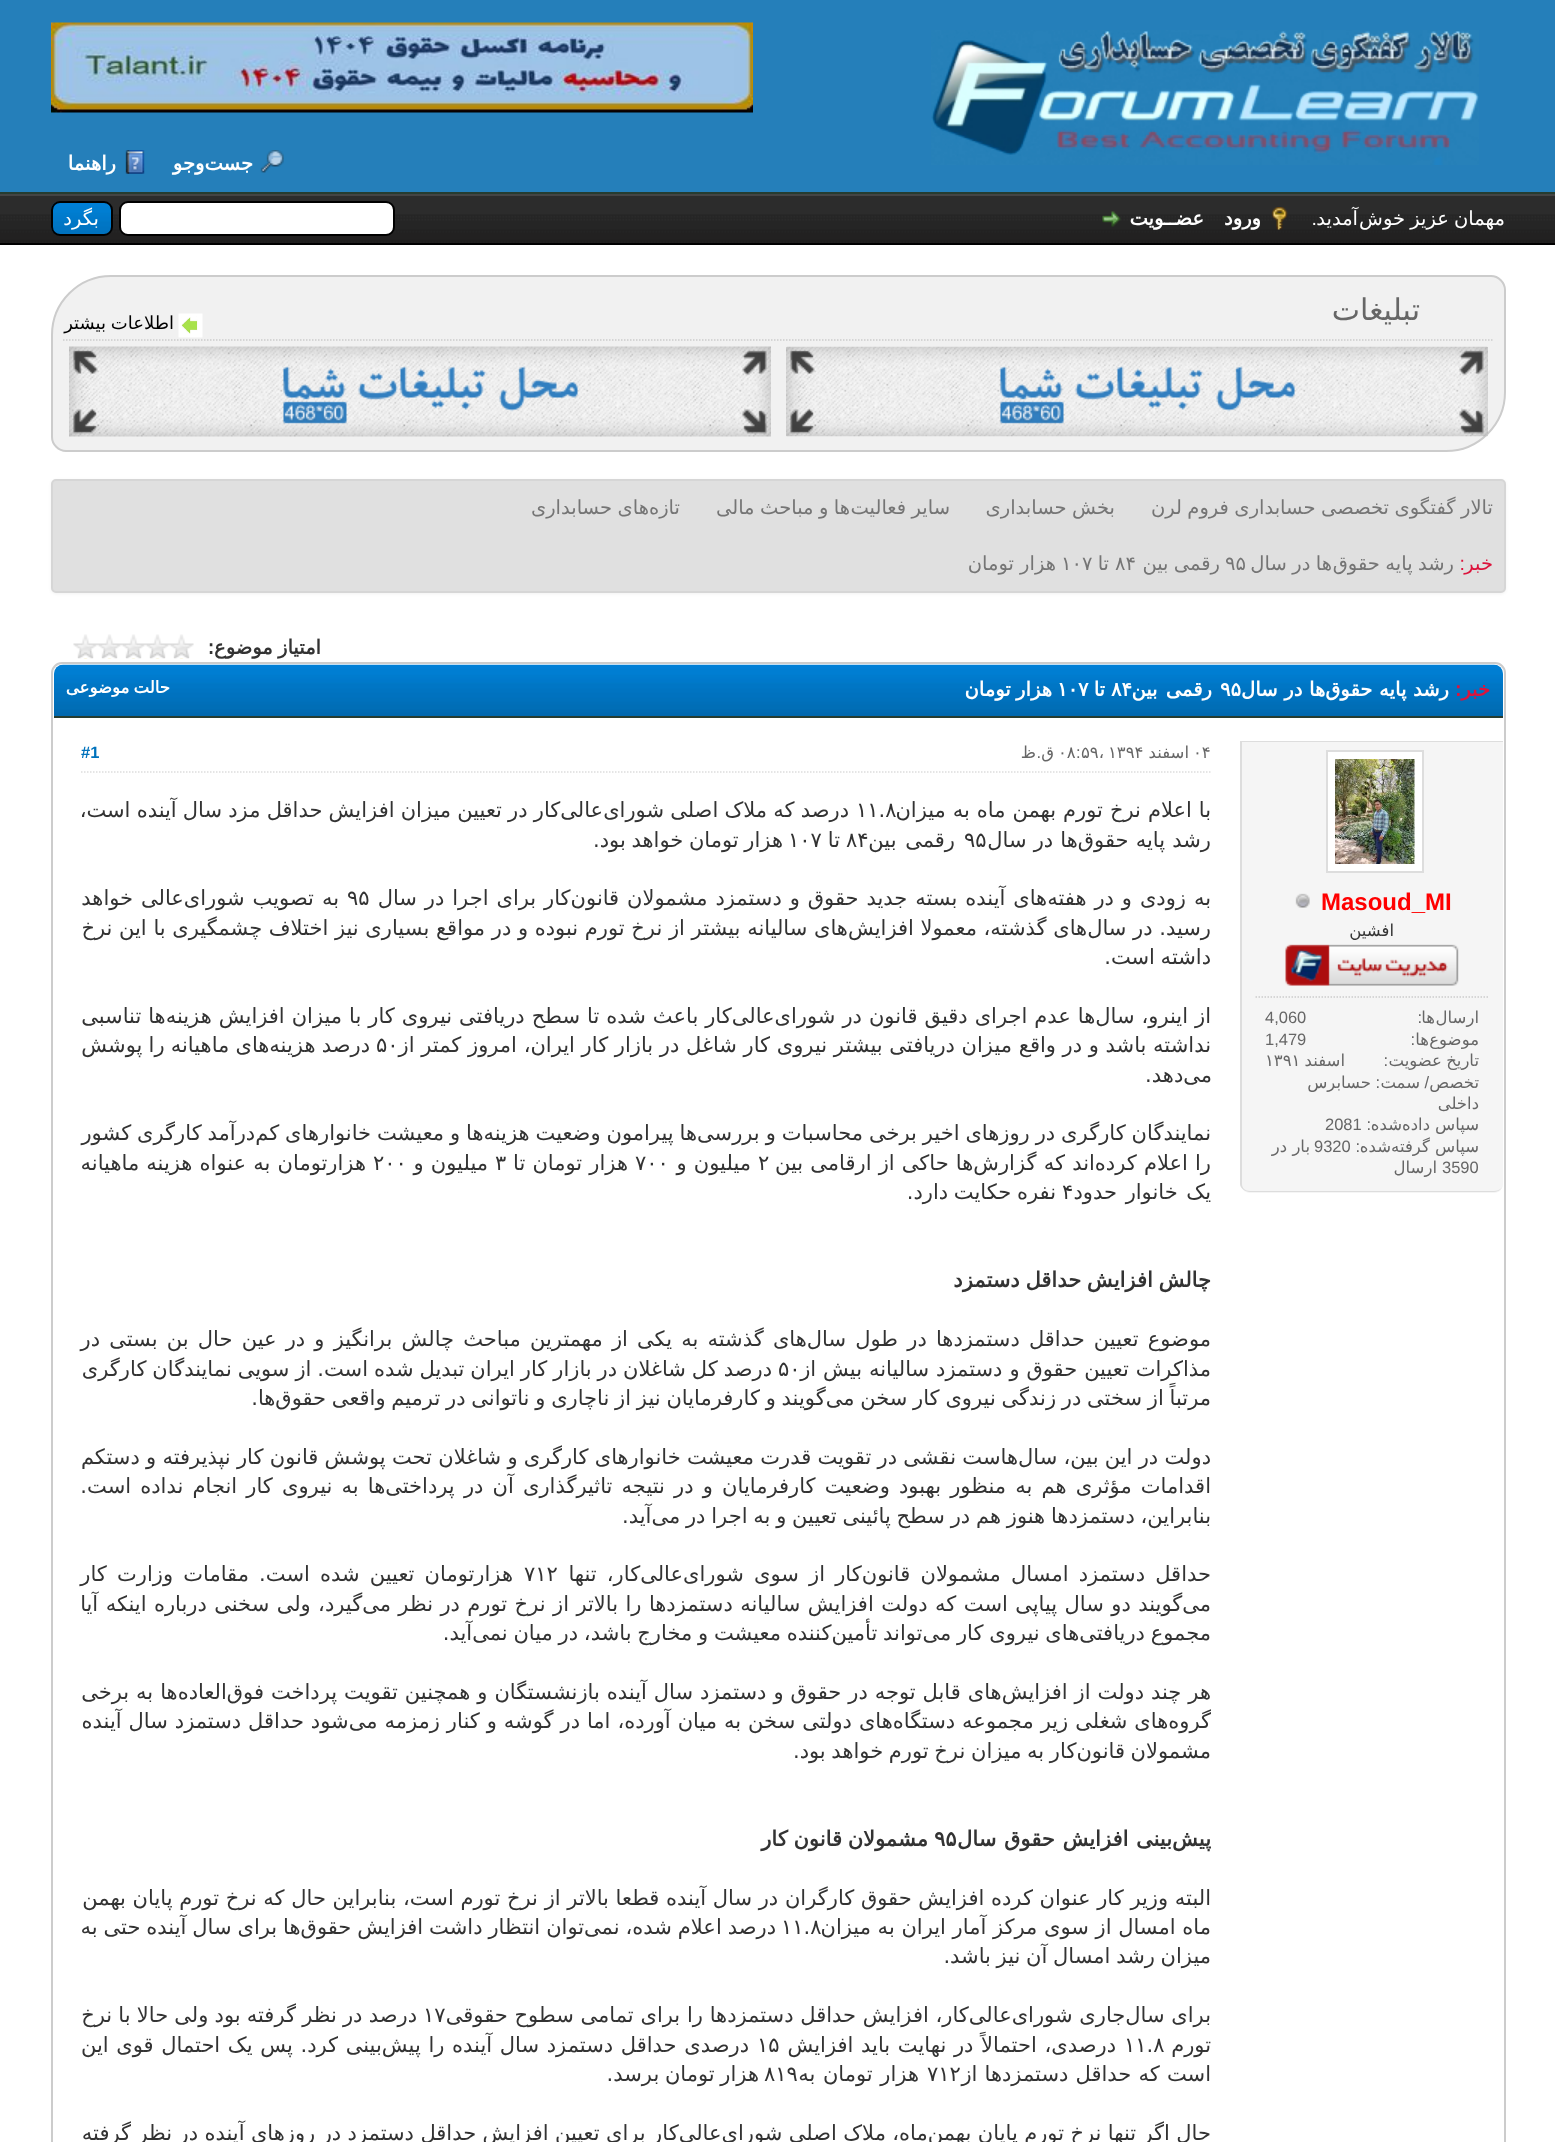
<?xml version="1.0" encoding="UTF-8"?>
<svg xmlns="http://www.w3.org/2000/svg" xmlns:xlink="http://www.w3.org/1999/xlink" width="1555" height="2142">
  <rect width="100%" height="100%" fill="#ffffff" />
  <rect width="1555" height="192" fill="#257fba" />
  <rect y="192" width="1555" height="2" fill="#263c30" />
  <image x="931" y="30" width="548" height="135" xlink:href="image1.png" />
  <image x="51" y="22" width="702" height="91" xlink:href="image2.png" />
  <image x="260" y="150" width="24" height="23" xlink:href="image3.png" />
  <image x="125" y="150" width="20" height="24" xlink:href="image4.png" />
  <image x="0" y="196" width="1555" height="47" xlink:href="image5.png" />
  <rect y="194" width="1555" height="2" fill="#444444" />
  <rect y="243" width="1555" height="2" fill="#000000" />
  <image x="1271" y="207" width="17" height="23" xlink:href="image6.png" />
  <image x="1102" y="211" width="19" height="16" xlink:href="image7.png" />
  <rect x="120" y="202" width="274" height="33" rx="8" fill="#ffffff" stroke="#000000" stroke-width="2" />
  <image x="51" y="202" width="62" height="34" xlink:href="image8.png" />
  <rect x="52" y="202" width="60" height="33" rx="8" fill="none" stroke="#000000" stroke-width="2" />
  <path d="M 111 276 h 1380 c 7.5 0 14 6.5 14 14 v 102 c 0 32.5 -26.5 59 -59 59 h -1380 c -7.5 0 -14 -6.5 -14 -14 v -102 c 0 -32.5 26.5 -59 59 -59 z" fill="#f1f1f1" stroke="#cccccc" stroke-width="2" />
  <path d="M 63 340 h 1431" fill="none" stroke="#cccccc" stroke-width="1.5" stroke-dasharray="1.5 1.5" />
  <image x="178" y="313" width="25" height="25" xlink:href="image9.png" />
  <image x="786" y="346" width="702" height="91" xlink:href="image10.png" />
  <image x="69" y="346" width="702" height="91" xlink:href="image11.png" />
  <rect x="51" y="480" width="1455" height="114" rx="5" fill="#000000" fill-opacity="0.05" filter="blur(1.5px)" />
  <rect x="52" y="480" width="1453" height="112" rx="4" fill="#e0e0e0" stroke="#d6d6d6" stroke-width="2" />
  <image x="73" y="634" width="121" height="25" xlink:href="image12.png" />
  <rect x="52" y="663" width="1453" height="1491" rx="10" fill="none" stroke="#cccccc" stroke-width="2" />
  <image x="54" y="664" width="1449" height="52" xlink:href="image13.png" />
  <rect x="54" y="716" width="1449" height="2" fill="#263c30" />
  <path d="M 1241 741 h 262 v 443 c 0 5 -4 9 -9 9 h -244 c -5 0 -9 -4 -9 -9 z" fill="#f5f5f5" />
  <path d="M 1240 741 h 263 v 443 c 0 4 -4 8 -9 8 h -244 c -5 0 -10 -4 -10 -8 z m 2 1 h 261 v 442 c 0 4 -4 7 -9 7 h -244 c -5 0 -8 -3 -8 -7 z" fill="#dddddd" fill-rule="evenodd" />
  <rect x="1327" y="751" width="96" height="121" fill="#ffffff" stroke="#dddddd" stroke-width="2" />
  <image x="1335" y="759" width="80" height="105" xlink:href="image14.png" />
  <image x="1295" y="893" width="15" height="15" xlink:href="image15.png" />
  <image x="1285" y="944" width="174" height="42" xlink:href="image16.png" />
  <path d="M 1255.5 997 h 232.5" fill="none" stroke="#cccccc" stroke-width="1.5" stroke-dasharray="1.5 1.5" />
  <path d="M 81 772 h 1129.5" fill="none" stroke="#dddddd" stroke-width="1.5" stroke-dasharray="1.5 1.5" />
  <text x="253" y="170" style="font-family: DejaVu Sans; font-size: 19.5px; font-weight: bold; direction: rtl; fill: #ffffff">جست‌و‌جو</text>
  <text x="116" y="170" style="font-family: DejaVu Sans; font-size: 19.5px; font-weight: bold; direction: rtl; fill: #ffffff">راهنما</text>
  <text x="1358" y="225" style="font-family: DejaVu Sans; font-size: 19.5px; direction: rtl; fill: #ffffff">آمدید</text>
  <text x="1505" y="225" word-spacing="-1" style="font-family: DejaVu Sans; font-size: 19.5px; direction: rtl; fill: #ffffff">مهمان عزیز خوش</text>
  <text x="1317" y="225" style="font-family: Liberation Sans; font-size: 19.5px; direction: rtl; fill: #ffffff">.</text>
  <text x="1261" y="225" style="font-family: DejaVu Sans; font-size: 19.5px; font-weight: bold; direction: rtl; fill: #ffffff">ورود</text>
  <text x="1204" y="225" style="font-family: DejaVu Sans; font-size: 19.5px; font-weight: bold; direction: rtl; fill: #ffffff">عضــویت</text>
  <text x="99" y="225" style="font-family: DejaVu Sans; font-size: 19.5px; direction: rtl; fill: #ffffff">بگرد</text>
  <text x="1420" y="320" style="font-family: DejaVu Sans; font-size: 30px; direction: rtl; fill: #666666">تبليغات</text>
  <text x="174" y="329" word-spacing="-1" style="font-family: DejaVu Sans; font-size: 18px; direction: rtl; fill: #000000">اطلاعات بيشتر</text>
  <text x="1493" y="514" word-spacing="-0.75" style="font-family: DejaVu Sans; font-size: 19.5px; direction: rtl; fill: #757575">تالار گفتگوی تخصصی حسابداری فروم لرن</text>
  <text x="1115" y="514" word-spacing="-0.75" style="font-family: DejaVu Sans; font-size: 19.5px; direction: rtl; fill: #757575">بخش حسابداری</text>
  <text x="950" y="514" word-spacing="-0.75" style="font-family: DejaVu Sans; font-size: 19.5px; direction: rtl; fill: #757575">سایر فعالیت</text>
  <text x="850" y="514" word-spacing="-0.75" style="font-family: DejaVu Sans; font-size: 19.5px; direction: rtl; fill: #757575">ها و مباحث مالی</text>
  <text x="680" y="514" style="font-family: DejaVu Sans; font-size: 19.5px; direction: rtl; fill: #757575">تازه</text>
  <text x="649" y="514" word-spacing="-0.75" style="font-family: DejaVu Sans; font-size: 19.5px; direction: rtl; fill: #757575">های حسابداری</text>
  <text x="1493" y="570" style="font-family: DejaVu Sans; font-size: 19.5px; direction: rtl; fill: #dc143c">خبر</text>
  <text x="1465" y="570" style="font-family: Liberation Sans; font-size: 19.5px; direction: rtl; fill: #dc143c">:</text>
  <text x="1454" y="570" word-spacing="-0.75" style="font-family: DejaVu Sans; font-size: 19.5px; direction: rtl; fill: #757575">رشد پایه حقوق</text>
  <text x="1332" y="570" word-spacing="-0.75" style="font-family: DejaVu Sans; font-size: 19.5px; direction: rtl; fill: #757575">ها در سال</text>
  <text x="1225" y="570" style="font-family: DejaVu Sans; font-size: 19.5px; fill: #757575">۹۵</text>
  <text x="1220" y="570" word-spacing="-1" style="font-family: DejaVu Sans; font-size: 19.5px; direction: rtl; fill: #757575">رقمی بین</text>
  <text x="1115" y="570" style="font-family: DejaVu Sans; font-size: 19.5px; fill: #757575">۸۴</text>
  <text x="1109" y="570" style="font-family: DejaVu Sans; font-size: 19.5px; direction: rtl; fill: #757575">تا</text>
  <text x="1061" y="570" style="font-family: DejaVu Sans; font-size: 19.5px; fill: #757575">۱۰۷</text>
  <text x="1056" y="570" style="font-family: DejaVu Sans; font-size: 19.5px; direction: rtl; fill: #757575">هزار تومان</text>
  <text x="321" y="654" word-spacing="-1" style="font-family: DejaVu Sans; font-size: 19.5px; font-weight: bold; direction: rtl; fill: #333333">امتیاز موضوع:</text>
  <text x="1490" y="696" style="font-family: DejaVu Sans; font-size: 19.5px; font-weight: bold; direction: rtl; fill: #dc143c">خبر:</text>
  <text x="1449" y="696" word-spacing="0.5" style="font-family: DejaVu Sans; font-size: 19.5px; font-weight: bold; direction: rtl; fill: #ffffff">رشد پایه حقوق‌ها در سال</text>
  <text x="1220" y="696" style="font-family: DejaVu Sans; font-size: 19.5px; font-weight: bold; fill: #ffffff">۹۵</text>
  <text x="1212" y="696" word-spacing="2" style="font-family: DejaVu Sans; font-size: 19.5px; font-weight: bold; direction: rtl; fill: #ffffff">رقمی بین</text>
  <text x="1111" y="696" style="font-family: DejaVu Sans; font-size: 19.5px; font-weight: bold; fill: #ffffff">۸۴</text>
  <text x="1105" y="696" style="font-family: DejaVu Sans; font-size: 19.5px; font-weight: bold; direction: rtl; fill: #ffffff">تا</text>
  <text x="1057" y="696" style="font-family: DejaVu Sans; font-size: 19.5px; font-weight: bold; fill: #ffffff">۱۰۷</text>
  <text x="1052" y="696" word-spacing="-0.75" style="font-family: DejaVu Sans; font-size: 19.5px; font-weight: bold; direction: rtl; fill: #ffffff">هزار تومان</text>
  <text x="170" y="693" word-spacing="-1" style="font-family: DejaVu Sans; font-size: 16.5px; font-weight: bold; direction: rtl; fill: #ffffff">حالت موضوعی</text>
  <text x="1321" y="910" style="font-family: Liberation Sans; font-size: 24px; font-weight: bold; fill: #ff0000">Masoud_MI</text>
  <text x="1394" y="936" style="font-family: DejaVu Sans; font-size: 16.5px; direction: rtl; fill: #333333">افشین</text>
  <text x="1479" y="1023" style="font-family: DejaVu Sans; font-size: 16.5px; direction: rtl; fill: #666666">ارسال</text>
  <text x="1435" y="1023" style="font-family: DejaVu Sans; font-size: 16.5px; direction: rtl; fill: #666666">ها</text>
  <text x="1422" y="1023" style="font-family: Liberation Sans; font-size: 16.5px; direction: rtl; fill: #666666">:</text>
  <text x="1265" y="1023" style="font-family: Liberation Sans; font-size: 16.5px; fill: #666666">4,060</text>
  <text x="1479" y="1045" style="font-family: DejaVu Sans; font-size: 16.5px; direction: rtl; fill: #666666">موضوع</text>
  <text x="1429" y="1045" style="font-family: DejaVu Sans; font-size: 16.5px; direction: rtl; fill: #666666">ها</text>
  <text x="1415" y="1045" style="font-family: Liberation Sans; font-size: 16.5px; direction: rtl; fill: #666666">:</text>
  <text x="1265" y="1045" style="font-family: Liberation Sans; font-size: 16.5px; fill: #666666">1,479</text>
  <text x="1479" y="1066" word-spacing="-1" style="font-family: DejaVu Sans; font-size: 16.5px; direction: rtl; fill: #666666">تاریخ عضویت</text>
  <text x="1388" y="1066" style="font-family: Liberation Sans; font-size: 16.5px; direction: rtl; fill: #666666">:</text>
  <text x="1345" y="1066" style="font-family: DejaVu Sans; font-size: 16.5px; direction: rtl; fill: #666666">اسفند</text>
  <text x="1265" y="1066" style="font-family: DejaVu Sans; font-size: 16.5px; fill: #666666">۱۳۹۱</text>
  <text x="1479" y="1088" style="font-family: DejaVu Sans; font-size: 16.5px; direction: rtl; fill: #666666">تخصص</text>
  <text x="1429" y="1088" style="font-family: Liberation Sans; font-size: 16.5px; direction: rtl; fill: #666666">/</text>
  <text x="1420" y="1088" style="font-family: DejaVu Sans; font-size: 16.5px; direction: rtl; fill: #666666">سمت</text>
  <text x="1380" y="1088" style="font-family: Liberation Sans; font-size: 16.5px; direction: rtl; fill: #666666">:</text>
  <text x="1371" y="1088" style="font-family: DejaVu Sans; font-size: 16.5px; direction: rtl; fill: #666666">حسابرس</text>
  <text x="1479" y="1109" style="font-family: DejaVu Sans; font-size: 16.5px; direction: rtl; fill: #666666">داخلی</text>
  <text x="1479" y="1130" style="font-family: DejaVu Sans; font-size: 16.5px; direction: rtl; fill: #666666">سپاس</text>
  <text x="1430" y="1130" style="font-family: DejaVu Sans; font-size: 16.5px; direction: rtl; fill: #666666">داده</text>
  <text x="1402" y="1130" style="font-family: DejaVu Sans; font-size: 16.5px; direction: rtl; fill: #666666">شده</text>
  <text x="1371" y="1130" style="font-family: Liberation Sans; font-size: 16.5px; direction: rtl; fill: #666666">:</text>
  <text x="1325" y="1130" style="font-family: Liberation Sans; font-size: 16.5px; fill: #666666">2081</text>
  <text x="1479" y="1152" style="font-family: DejaVu Sans; font-size: 16.5px; direction: rtl; fill: #666666">سپاس گرفته</text>
  <text x="1391" y="1152" style="font-family: DejaVu Sans; font-size: 16.5px; direction: rtl; fill: #666666">شده</text>
  <text x="1360" y="1152" style="font-family: Liberation Sans; font-size: 16.5px; direction: rtl; fill: #666666">:</text>
  <text x="1314" y="1152" style="font-family: Liberation Sans; font-size: 16.5px; fill: #666666">9320</text>
  <text x="1310" y="1152" style="font-family: DejaVu Sans; font-size: 16.5px; direction: rtl; fill: #666666">بار در</text>
  <text x="1442" y="1173" style="font-family: Liberation Sans; font-size: 16.5px; fill: #666666">3590</text>
  <text x="1437" y="1173" style="font-family: DejaVu Sans; font-size: 16.5px; direction: rtl; fill: #666666">ارسال</text>
  <text x="1193" y="758" style="font-family: DejaVu Sans; font-size: 16.5px; fill: #666666">۰۴</text>
  <text x="1189" y="758" style="font-family: DejaVu Sans; font-size: 16.5px; direction: rtl; fill: #666666">اسفند</text>
  <text x="1108" y="758" style="font-family: DejaVu Sans; font-size: 16.5px; fill: #666666">۱۳۹۴</text>
  <text x="1081" y="758" style="font-family: DejaVu Sans; font-size: 16.5px; fill: #666666">۵۹،</text>
  <text x="1076" y="758" style="font-family: Liberation Sans; font-size: 16.5px; fill: #666666">:</text>
  <text x="1058" y="758" style="font-family: DejaVu Sans; font-size: 16.5px; fill: #666666">۰۸</text>
  <text x="1054" y="758" style="font-family: DejaVu Sans; font-size: 16.5px; direction: rtl; fill: #666666">ق</text>
  <text x="1041" y="758" style="font-family: Liberation Sans; font-size: 16.5px; direction: rtl; fill: #666666">.</text>
  <text x="1036" y="758" style="font-family: DejaVu Sans; font-size: 16.5px; direction: rtl; fill: #666666">ظ</text>
  <text x="81" y="758" style="font-family: Liberation Sans; font-size: 16.5px; font-weight: bold; fill: #0072bc">#1</text>
  <text x="1211" y="817" word-spacing="0.3" style="font-family: DejaVu Sans; font-size: 21px; direction: rtl; fill: #333333">با اعلام نرخ تورم بهمن ماه به میزان</text>
  <text x="856" y="817" style="font-family: DejaVu Sans; font-size: 21px; fill: #333333">۱۱.۸</text>
  <text x="849" y="817" word-spacing="-0.5" style="font-family: DejaVu Sans; font-size: 21px; direction: rtl; fill: #333333">درصد که ملاک اصلی شورای‌عالی‌کار در تعیین میزان افزایش حداقل مزد سال آینده است،</text>
  <text x="1211" y="847" word-spacing="0.5" style="font-family: DejaVu Sans; font-size: 21px; direction: rtl; fill: #333333">رشد پایه حقوق‌ها در سال</text>
  <text x="964" y="847" style="font-family: DejaVu Sans; font-size: 21px; fill: #333333">۹۵</text>
  <text x="955" y="847" word-spacing="2" style="font-family: DejaVu Sans; font-size: 21px; direction: rtl; fill: #333333">رقمی بین</text>
  <text x="846" y="847" style="font-family: DejaVu Sans; font-size: 21px; fill: #333333">۸۴</text>
  <text x="840" y="847" style="font-family: DejaVu Sans; font-size: 21px; direction: rtl; fill: #333333">تا</text>
  <text x="788" y="847" style="font-family: DejaVu Sans; font-size: 21px; fill: #333333">۱۰۷</text>
  <text x="783" y="847" word-spacing="-1" style="font-family: DejaVu Sans; font-size: 21px; direction: rtl; fill: #333333">هزار تومان خواهد بود.</text>
  <text x="1211" y="905" word-spacing="1.25" style="font-family: DejaVu Sans; font-size: 21px; direction: rtl; fill: #333333">به زودی و در هفته‌های آینده بسته جدید حقوق و دستمزد مشمولان قانون‌کار برای اجرا در سال</text>
  <text x="347" y="905" style="font-family: DejaVu Sans; font-size: 21px; fill: #333333">۹۵</text>
  <text x="339" y="905" word-spacing="1.25" style="font-family: DejaVu Sans; font-size: 21px; direction: rtl; fill: #333333">به تصویب شورای‌عالی خواهد</text>
  <text x="1211" y="935" style="font-family: DejaVu Sans; font-size: 21px; direction: rtl; fill: #333333">رسید. در سال‌های گذشته، معمولا افزایش‌های سالیانه بیشتر از نرخ تورم نبوده و در مواقع بسیاری نیز اختلاف چشمگیری با این نرخ</text>
  <text x="1211" y="964" word-spacing="-1" style="font-family: DejaVu Sans; font-size: 21px; direction: rtl; fill: #333333">داشته است.</text>
  <text x="1211" y="1023" word-spacing="0.3" style="font-family: DejaVu Sans; font-size: 21px; direction: rtl; fill: #333333">از اینرو، سال‌ها عدم اجرای دقیق قانون در شورای‌عالی‌کار باعث شده تا سطح دریافتی نیروی کار با میزان افزایش هزینه‌ها تناسبی</text>
  <text x="1211" y="1052" style="font-family: DejaVu Sans; font-size: 21px; direction: rtl; fill: #333333">نداشته باشد و در واقع میزان دریافتی بیشتر نیروی کار شاغل در بازار کار ایران، امروز کمتر از</text>
  <text x="376" y="1052" style="font-family: DejaVu Sans; font-size: 21px; fill: #333333">۵۰</text>
  <text x="370" y="1052" word-spacing="-0.5" style="font-family: DejaVu Sans; font-size: 21px; direction: rtl; fill: #333333">درصد هزینه‌های ماهیانه را پوشش</text>
  <text x="1212" y="1082" style="font-family: DejaVu Sans; font-size: 21px; direction: rtl; fill: #333333">می‌دهد.</text>
  <text x="1211" y="1140" word-spacing="-0.75" style="font-family: DejaVu Sans; font-size: 21px; direction: rtl; fill: #333333">نمایندگان کارگری در روزهای اخیر برخی محاسبات و بررسی‌ها پیرامون وضعیت هزینه‌ها و معیشت خانوارهای کم‌درآمد کارگری کشور</text>
  <text x="1211" y="1170" word-spacing="0.5" style="font-family: DejaVu Sans; font-size: 21px; direction: rtl; fill: #333333">را اعلام کرده‌اند که گزارش‌ها حاکی از ارقامی بین</text>
  <text x="758" y="1170" style="font-family: DejaVu Sans; font-size: 21px; fill: #333333">۲</text>
  <text x="751" y="1170" word-spacing="0.5" style="font-family: DejaVu Sans; font-size: 21px; direction: rtl; fill: #333333">میلیون و</text>
  <text x="635" y="1170" style="font-family: DejaVu Sans; font-size: 21px; fill: #333333">۷۰۰</text>
  <text x="628" y="1170" word-spacing="0.5" style="font-family: DejaVu Sans; font-size: 21px; direction: rtl; fill: #333333">هزار تومان تا</text>
  <text x="495" y="1170" style="font-family: DejaVu Sans; font-size: 21px; fill: #333333">۳</text>
  <text x="488" y="1170" word-spacing="0.5" style="font-family: DejaVu Sans; font-size: 21px; direction: rtl; fill: #333333">میلیون و</text>
  <text x="373" y="1170" style="font-family: DejaVu Sans; font-size: 21px; fill: #333333">۲۰۰</text>
  <text x="366" y="1170" word-spacing="0.5" style="font-family: DejaVu Sans; font-size: 21px; direction: rtl; fill: #333333">هزارتومان به عنواه هزینه ماهیانه</text>
  <text x="1211" y="1199" word-spacing="2" style="font-family: DejaVu Sans; font-size: 21px; direction: rtl; fill: #333333">یک خانوار حدود</text>
  <text x="1062" y="1199" style="font-family: DejaVu Sans; font-size: 21px; fill: #333333">۴</text>
  <text x="1056" y="1199" word-spacing="-1" style="font-family: DejaVu Sans; font-size: 21px; direction: rtl; fill: #333333">نفره حکایت دارد.</text>
  <text x="1211" y="1287" word-spacing="-1" style="font-family: DejaVu Sans; font-size: 21px; font-weight: bold; direction: rtl; fill: #333333">چالش افزایش حداقل دستمزد</text>
  <text x="1211" y="1346" word-spacing="2.5" style="font-family: DejaVu Sans; font-size: 21px; direction: rtl; fill: #333333">موضوع تعیین حداقل دستمزدها در طول سال‌های گذشته به یکی از مهمترین مباحث چالش برانگیز و در عین حال بن بستی در</text>
  <text x="1211" y="1376" word-spacing="0.25" style="font-family: DejaVu Sans; font-size: 21px; direction: rtl; fill: #333333">مذاکرات تعیین حقوق و دستمزد سالیانه بیش از</text>
  <text x="778" y="1376" style="font-family: DejaVu Sans; font-size: 21px; fill: #333333">۵۰</text>
  <text x="772" y="1376" word-spacing="-0.75" style="font-family: DejaVu Sans; font-size: 21px; direction: rtl; fill: #333333">درصد کل شاغلان در بازار کار ایران تبدیل شده است. از سویی نمایندگان کارگری</text>
  <text x="1211" y="1405" word-spacing="-0.9" style="font-family: DejaVu Sans; font-size: 21px; direction: rtl; fill: #333333">مرتباً از سختی در زندگی نیروی کار سخن می‌گویند و کارفرمایان نیز از ناچاری و ناتوانی در ترمیم واقعی حقوق‌ها.</text>
  <text x="1211" y="1464" word-spacing="-0.4" style="font-family: DejaVu Sans; font-size: 21px; direction: rtl; fill: #333333">دولت در این بین، سال‌هاست نقشی در تقویت قدرت معیشت خانوارهای کارگری و شاغلان تحت پوشش قانون کار نپذیرفته و دستکم</text>
  <text x="1211" y="1493" word-spacing="2.5" style="font-family: DejaVu Sans; font-size: 21px; direction: rtl; fill: #333333">اقدامات مؤثری هم به منظور بهبود وضعیت کارفرمایان و در نتیجه تاثیرگذاری آن در پرداختی‌ها به نیروی کار انجام نداده است.</text>
  <text x="1211" y="1523" word-spacing="-0.9" style="font-family: DejaVu Sans; font-size: 21px; direction: rtl; fill: #333333">بنابراین، دستمزدها هنوز هم در سطح پائینی تعیین و به اجرا در می‌آید.</text>
  <text x="1211" y="1581" word-spacing="3.5" style="font-family: DejaVu Sans; font-size: 21px; direction: rtl; fill: #333333">حداقل دستمزد امسال مشمولان قانون‌کار از سوی شورای‌عالی‌کار، تنها</text>
  <text x="524" y="1581" style="font-family: DejaVu Sans; font-size: 21px; fill: #333333">۷۱۲</text>
  <text x="513" y="1581" word-spacing="3.5" style="font-family: DejaVu Sans; font-size: 21px; direction: rtl; fill: #333333">هزارتومان تعیین شده است. مقامات وزارت کار</text>
  <text x="1211" y="1611" word-spacing="0.75" style="font-family: DejaVu Sans; font-size: 21px; direction: rtl; fill: #333333">می‌گویند دو سال پیاپی است که دولت افزایش سالیانه دستمزدها را بالاتر از نرخ تورم در نظر می‌گیرد، ولی سخنی درباره اینکه آیا</text>
  <text x="1211" y="1640" word-spacing="-0.9" style="font-family: DejaVu Sans; font-size: 21px; direction: rtl; fill: #333333">مجموع دریافتی‌های نیروی کار می‌تواند تأمین‌کننده معیشت و مخارج باشد، در میان نمی‌آید.</text>
  <text x="1211" y="1699" word-spacing="0.3" style="font-family: DejaVu Sans; font-size: 21px; direction: rtl; fill: #333333">هر چند دولت از افزایش‌های قابل توجه در حقوق و دستمزد سال آینده بازنشستگان و همچنین تقویت پرداخت فوق‌العاده‌ها به برخی</text>
  <text x="1211" y="1728" word-spacing="0.3" style="font-family: DejaVu Sans; font-size: 21px; direction: rtl; fill: #333333">گروه‌های شغلی زیر مجموعه دستگاه‌های دولتی سخن به میان آورده، اما در گوشه و کنار زمزمه می‌شود حداقل دستمزد سال آینده</text>
  <text x="1211" y="1758" word-spacing="-1" style="font-family: DejaVu Sans; font-size: 21px; direction: rtl; fill: #333333">مشمولان قانون‌کار به میزان نرخ تورم خواهد بود.</text>
  <text x="1211" y="1846" word-spacing="1" style="font-family: DejaVu Sans; font-size: 21px; font-weight: bold; direction: rtl; fill: #333333">پیش‌بینی افزایش حقوق سال</text>
  <text x="934" y="1846" style="font-family: DejaVu Sans; font-size: 21px; font-weight: bold; fill: #333333">۹۵</text>
  <text x="928" y="1846" word-spacing="-1" style="font-family: DejaVu Sans; font-size: 21px; font-weight: bold; direction: rtl; fill: #333333">مشمولان قانون کار</text>
  <text x="1211" y="1905" style="font-family: DejaVu Sans; font-size: 21px; direction: rtl; fill: #333333">البته وزیر کار عنوان کرده افزایش حقوق کارگران در سال آینده قطعا بالاتر از نرخ تورم است، بنابراین حال که نرخ تورم پایان بهمن</text>
  <text x="1211" y="1934" style="font-family: DejaVu Sans; font-size: 21px; direction: rtl; fill: #333333">ماه امسال از سوی مرکز آمار ایران به میزان</text>
  <text x="781" y="1934" style="font-family: DejaVu Sans; font-size: 21px; fill: #333333">۱۱.۸</text>
  <text x="776" y="1934" word-spacing="-0.75" style="font-family: DejaVu Sans; font-size: 21px; direction: rtl; fill: #333333">درصد اعلام شده، نمی‌توان انتظار داشت افزایش حقوق‌ها برای سال آینده حتی به</text>
  <text x="1211" y="1963" word-spacing="-1" style="font-family: DejaVu Sans; font-size: 21px; direction: rtl; fill: #333333">میزان رشد امسال آن نیز باشد.</text>
  <text x="1211" y="2022" word-spacing="0.1" style="font-family: DejaVu Sans; font-size: 21px; direction: rtl; fill: #333333">برای سال‌جاری شورای‌عالی‌کار، افزایش حداقل دستمزدها را برای تمامی سطوح حقوقی</text>
  <text x="423" y="2022" style="font-family: DejaVu Sans; font-size: 21px; fill: #333333">۱۷</text>
  <text x="417" y="2022" word-spacing="-0.5" style="font-family: DejaVu Sans; font-size: 21px; direction: rtl; fill: #333333">درصد در نظر گرفته بود ولی حالا با نرخ</text>
  <text x="1211" y="2052" style="font-family: DejaVu Sans; font-size: 21px; direction: rtl; fill: #333333">تورم</text>
  <text x="1124" y="2052" style="font-family: DejaVu Sans; font-size: 21px; fill: #333333">۱۱.۸</text>
  <text x="1116" y="2052" word-spacing="1" style="font-family: DejaVu Sans; font-size: 21px; direction: rtl; fill: #333333">درصدی، احتمالاً در نهایت باید افزایش</text>
  <text x="757" y="2052" style="font-family: DejaVu Sans; font-size: 21px; fill: #333333">۱۵</text>
  <text x="749" y="2052" word-spacing="1" style="font-family: DejaVu Sans; font-size: 21px; direction: rtl; fill: #333333">درصدی حداقل دستمزد سال آینده را پیش‌بینی کرد. پس یک احتمال قوی این</text>
  <text x="1211" y="2081" word-spacing="0.5" style="font-family: DejaVu Sans; font-size: 21px; direction: rtl; fill: #333333">است که حداقل دستمزدها از</text>
  <text x="927" y="2081" style="font-family: DejaVu Sans; font-size: 21px; fill: #333333">۷۱۲</text>
  <text x="919" y="2081" word-spacing="1" style="font-family: DejaVu Sans; font-size: 21px; direction: rtl; fill: #333333">هزار تومان به</text>
  <text x="764" y="2081" style="font-family: DejaVu Sans; font-size: 21px; fill: #333333">۸۱۹</text>
  <text x="759" y="2081" word-spacing="-1" style="font-family: DejaVu Sans; font-size: 21px; direction: rtl; fill: #333333">هزار تومان برسد.</text>
  <text x="1211" y="2140" word-spacing="-0.25" style="font-family: DejaVu Sans; font-size: 21px; direction: rtl; fill: #333333">حال اگر تنها نرخ تورم پایان بهمن‌ماه، ملاک اصلی شورای‌عالی‌کار برای تعیین افزایش حداقل دستمزد در روزهای آینده در نظر گرفته</text>
</svg>
